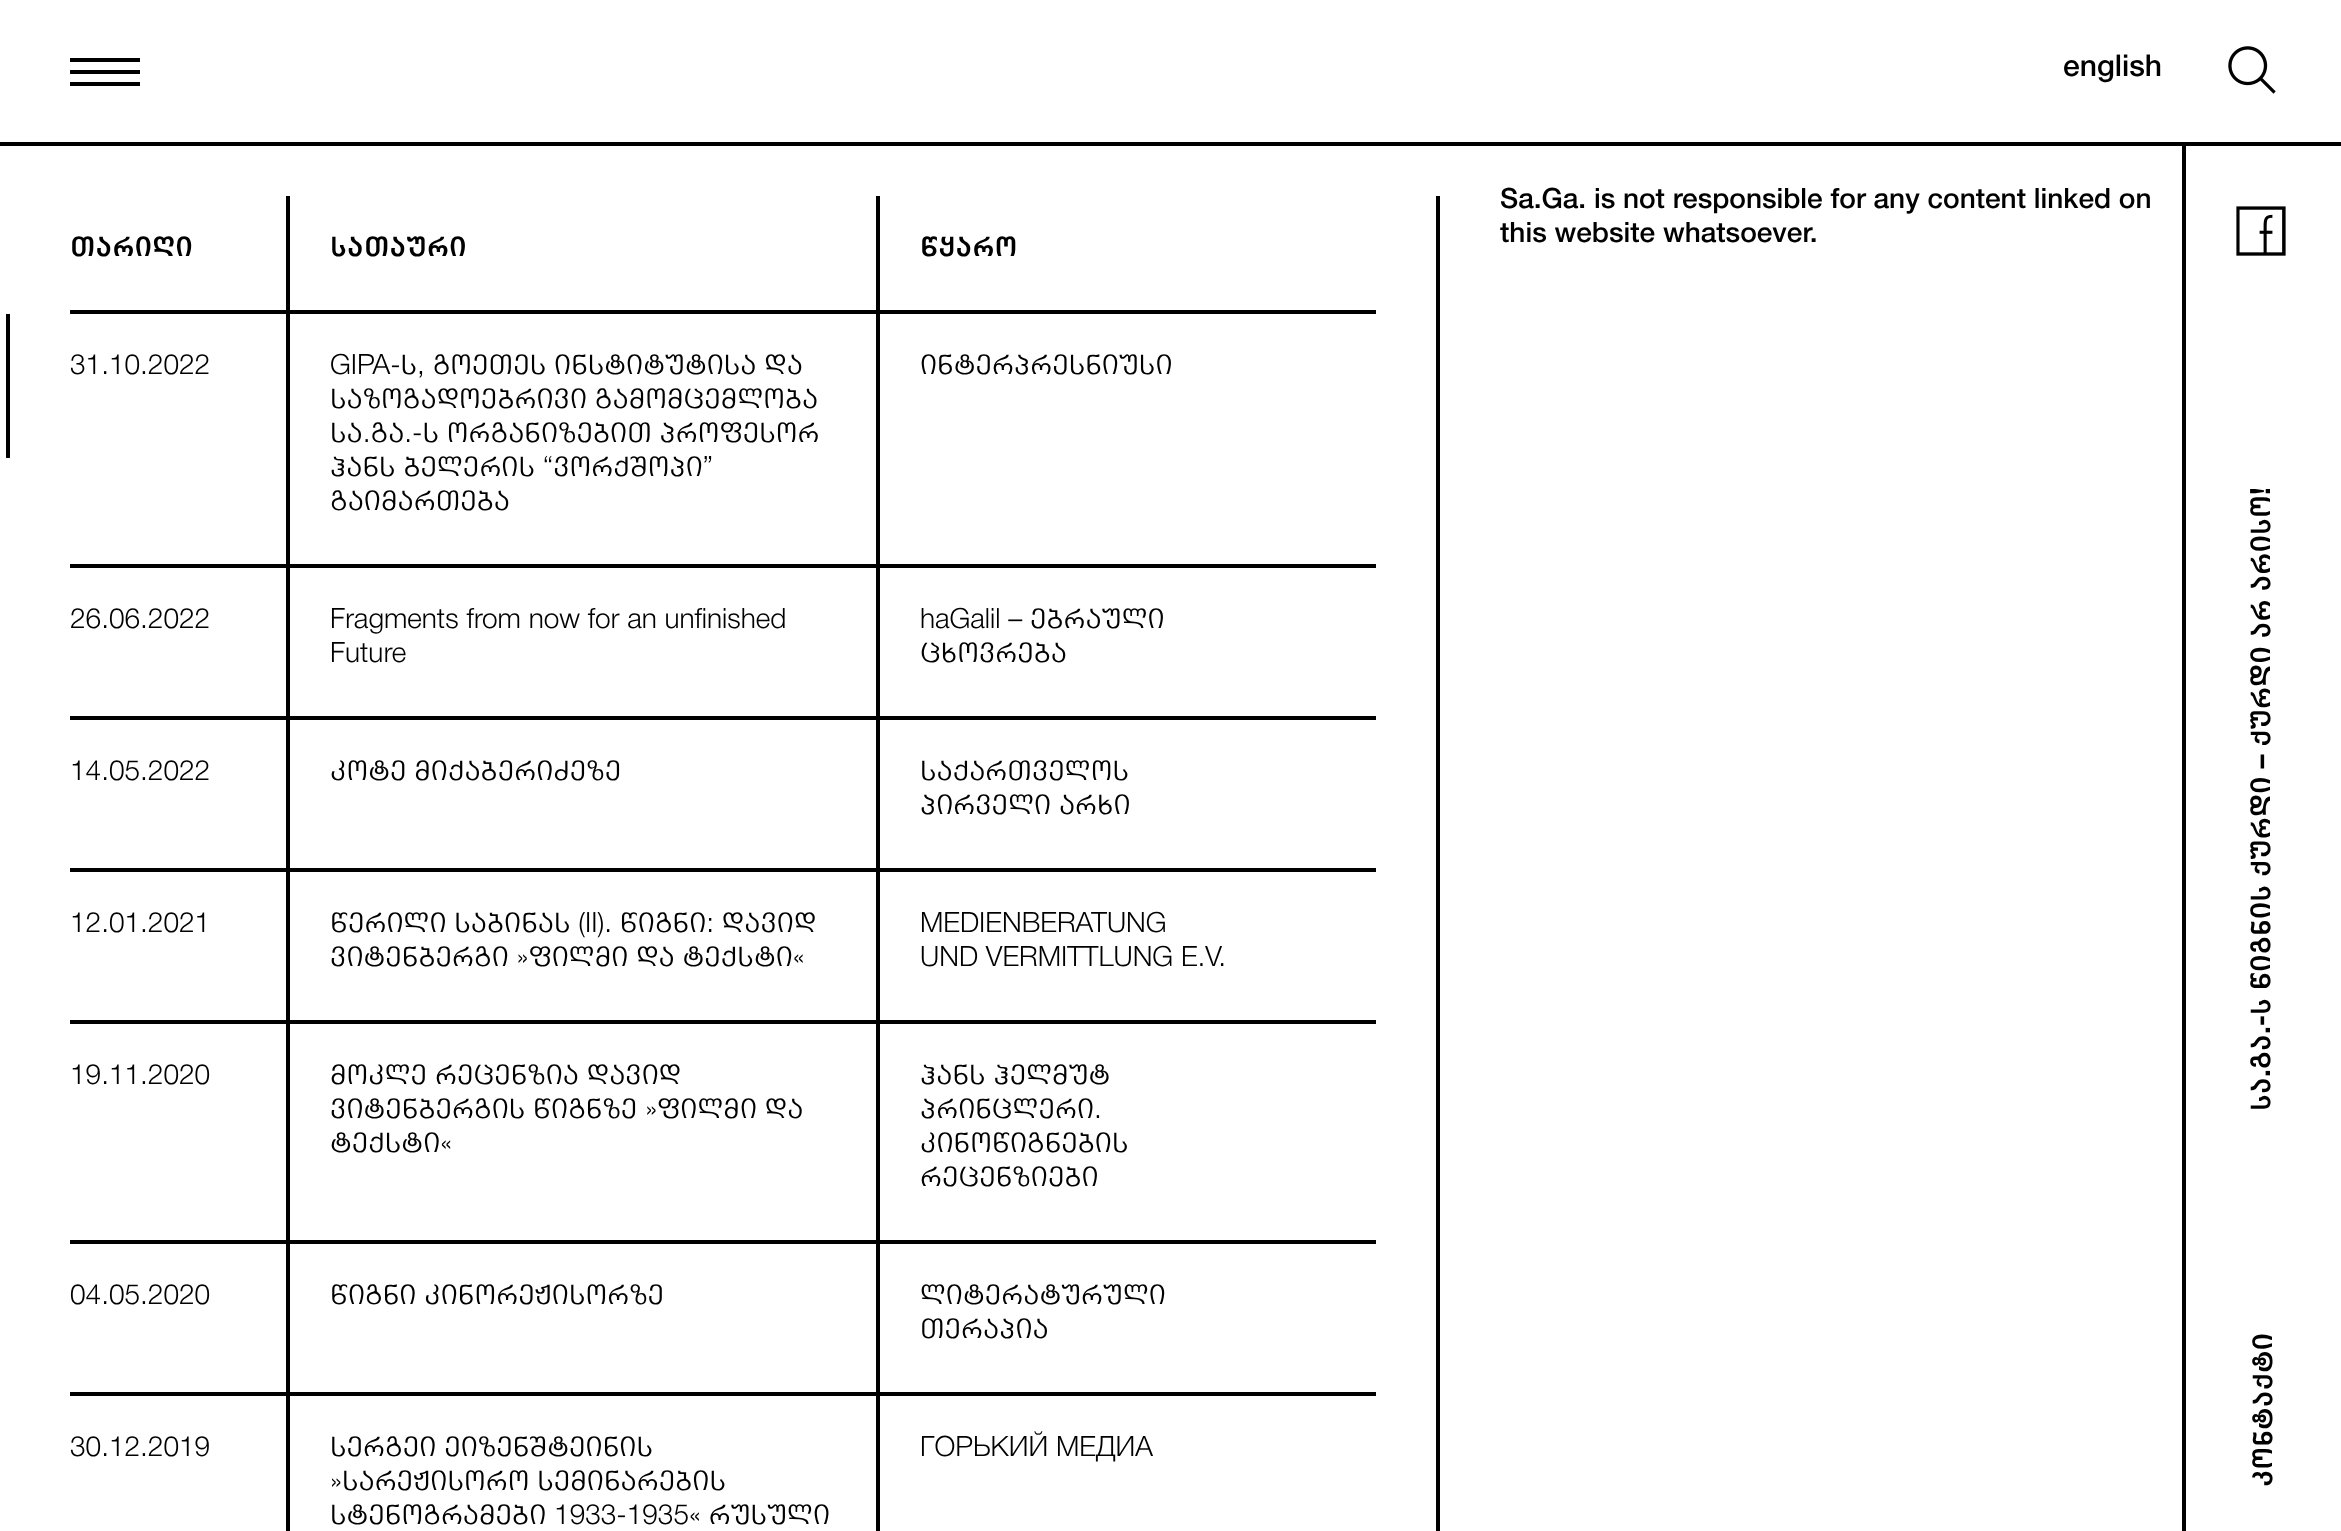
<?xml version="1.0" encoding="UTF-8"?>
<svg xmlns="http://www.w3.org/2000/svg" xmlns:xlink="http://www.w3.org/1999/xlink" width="2341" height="1531">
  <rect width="100%" height="100%" fill="#ffffff" />
  <rect y="142" width="2341" height="4" fill="#000000" />
  <rect x="70" y="58" width="70" height="4" fill="#000000" />
  <rect x="70" y="70" width="70" height="4" fill="#000000" />
  <rect x="70" y="82" width="70" height="4" fill="#000000" />
  <image x="2228" y="46" width="48" height="48" xlink:href="image1.png" />
  <rect x="1436" y="196" width="4" height="1335" fill="#000000" />
  <rect x="286" y="196" width="4" height="1335" fill="#000000" />
  <rect x="70" y="310" width="220" height="4" fill="#000000" />
  <rect x="876" y="196" width="4" height="1335" fill="#000000" />
  <rect x="290" y="310" width="1086" height="4" fill="#000000" />
  <rect x="6" y="314" width="4" height="144" fill="#000000" />
  <rect x="70" y="564" width="1306" height="4" fill="#000000" />
  <rect x="70" y="716" width="1306" height="4" fill="#000000" />
  <rect x="70" y="868" width="1306" height="4" fill="#000000" />
  <rect x="70" y="1020" width="1306" height="4" fill="#000000" />
  <rect x="70" y="1240" width="1306" height="4" fill="#000000" />
  <rect x="70" y="1392" width="1306" height="4" fill="#000000" />
  <rect x="2182" y="146" width="4" height="1385" fill="#000000" />
  <image x="2236" y="206" width="50" height="50" xlink:href="image2.png" />
  <text x="2063" y="76" style="font-family: Helvetica Neue; font-size: 30px; font-weight: 500; fill: #000000">english</text>
  <text x="1500" y="208" style="font-family: Helvetica Neue; font-size: 28px; font-weight: 500; fill: #000000">Sa.Ga. is not responsible for any content linked on</text>
  <text x="1500" y="242" style="font-family: Helvetica Neue; font-size: 28px; font-weight: 500; fill: #000000">this website whatsoever.</text>
  <text x="70" y="256" style="font-family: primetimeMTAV; font-size: 28px; font-weight: bold; fill: #000000">თარიღი</text>
  <text x="330" y="256" style="font-family: primetimeMTAV; font-size: 28px; font-weight: bold; fill: #000000">სათაური</text>
  <text x="920" y="256" style="font-family: primetimeMTAV; font-size: 28px; font-weight: bold; fill: #000000">წყარო</text>
  <text x="70" y="374" style="font-family: primetimeMTAV; font-size: 28px; fill: #000000">31.10.2022</text>
  <text x="330" y="374" style="font-family: primetimeMTAV; font-size: 28px; fill: #000000">GIPA-ს, გოეთეს ინსტიტუტისა და</text>
  <text x="330" y="408" style="font-family: primetimeMTAV; font-size: 28px; fill: #000000">საზოგადოებრივი გამომცემლობა</text>
  <text x="330" y="442" style="font-family: primetimeMTAV; font-size: 28px; fill: #000000">სა.გა.-ს ორგანიზებით პროფესორ</text>
  <text x="330" y="476" style="font-family: primetimeMTAV; font-size: 28px; fill: #000000">ჰანს ბელერის “ვორქშოპი”</text>
  <text x="330" y="510" style="font-family: primetimeMTAV; font-size: 28px; fill: #000000">გაიმართება</text>
  <text x="920" y="374" style="font-family: primetimeMTAV; font-size: 28px; fill: #000000">ინტერპრესნიუსი</text>
  <text x="70" y="628" style="font-family: primetimeMTAV; font-size: 28px; fill: #000000">26.06.2022</text>
  <text x="330" y="628" style="font-family: primetimeMTAV; font-size: 28px; fill: #000000">Fragments from now for an unfinished</text>
  <text x="330" y="662" style="font-family: primetimeMTAV; font-size: 28px; fill: #000000">Future</text>
  <text x="920" y="628" style="font-family: primetimeMTAV; font-size: 28px; fill: #000000">haGalil – ებრაული</text>
  <text x="920" y="662" style="font-family: primetimeMTAV; font-size: 28px; fill: #000000">ცხოვრება</text>
  <text x="70" y="780" style="font-family: primetimeMTAV; font-size: 28px; fill: #000000">14.05.2022</text>
  <text x="330" y="780" style="font-family: primetimeMTAV; font-size: 28px; fill: #000000">კოტე მიქაბერიძეზე</text>
  <text x="920" y="780" style="font-family: primetimeMTAV; font-size: 28px; fill: #000000">საქართველოს</text>
  <text x="920" y="814" style="font-family: primetimeMTAV; font-size: 28px; fill: #000000">პირველი არხი</text>
  <text x="70" y="932" style="font-family: primetimeMTAV; font-size: 28px; fill: #000000">12.01.2021</text>
  <text x="330" y="932" style="font-family: primetimeMTAV; font-size: 28px; fill: #000000">წერილი საბინას (II). წიგნი: დავიდ</text>
  <text x="330" y="966" style="font-family: primetimeMTAV; font-size: 28px; fill: #000000">ვიტენბერგი »ფილმი და ტექსტი«</text>
  <text x="920" y="932" style="font-family: primetimeMTAV; font-size: 28px; fill: #000000">MEDIENBERATUNG</text>
  <text x="920" y="966" style="font-family: primetimeMTAV; font-size: 28px; fill: #000000">UND VERMITTLUNG E.V.</text>
  <text x="70" y="1084" style="font-family: primetimeMTAV; font-size: 28px; fill: #000000">19.11.2020</text>
  <text x="330" y="1084" style="font-family: primetimeMTAV; font-size: 28px; fill: #000000">მოკლე რეცენზია დავიდ</text>
  <text x="330" y="1118" style="font-family: primetimeMTAV; font-size: 28px; fill: #000000">ვიტენბერგის წიგნზე »ფილმი და</text>
  <text x="330" y="1152" style="font-family: primetimeMTAV; font-size: 28px; fill: #000000">ტექსტი«</text>
  <text x="920" y="1084" style="font-family: primetimeMTAV; font-size: 28px; fill: #000000">ჰანს ჰელმუტ</text>
  <text x="920" y="1118" style="font-family: primetimeMTAV; font-size: 28px; fill: #000000">პრინცლერი.</text>
  <text x="920" y="1152" style="font-family: primetimeMTAV; font-size: 28px; fill: #000000">კინოწიგნების</text>
  <text x="920" y="1186" style="font-family: primetimeMTAV; font-size: 28px; fill: #000000">რეცენზიები</text>
  <text x="70" y="1304" style="font-family: primetimeMTAV; font-size: 28px; fill: #000000">04.05.2020</text>
  <text x="330" y="1304" style="font-family: primetimeMTAV; font-size: 28px; fill: #000000">წიგნი კინორეჟისორზე</text>
  <text x="920" y="1304" style="font-family: primetimeMTAV; font-size: 28px; fill: #000000">ლიტერატურული</text>
  <text x="920" y="1338" style="font-family: primetimeMTAV; font-size: 28px; fill: #000000">თერაპია</text>
  <text x="70" y="1456" style="font-family: primetimeMTAV; font-size: 28px; fill: #000000">30.12.2019</text>
  <text x="330" y="1456" style="font-family: primetimeMTAV; font-size: 28px; fill: #000000">სერგეი ეიზენშტეინის</text>
  <text x="330" y="1490" style="font-family: primetimeMTAV; font-size: 28px; fill: #000000">»სარეჟისორო სემინარების</text>
  <text x="330" y="1524" style="font-family: primetimeMTAV; font-size: 28px; fill: #000000">სტენოგრამები 1933-1935« რუსული</text>
  <text x="920" y="1456" style="font-family: primetimeMTAV; font-size: 28px; fill: #000000">ГОРЬКИЙ МЕДИА</text>
  <text x="2270" y="1111" transform="rotate(-90 2270 1111)" style="font-family: primetimeMTAV; font-size: 28px; font-weight: bold; fill: #000000">სა.გა.-ს წიგნის ქურდი – ქურდი არ არისო!</text>
  <text x="2272" y="1487" transform="rotate(-90 2272 1487)" style="font-family: primetimeMTAV; font-size: 28px; font-weight: bold; fill: #000000">კონტაქტი</text>
</svg>
